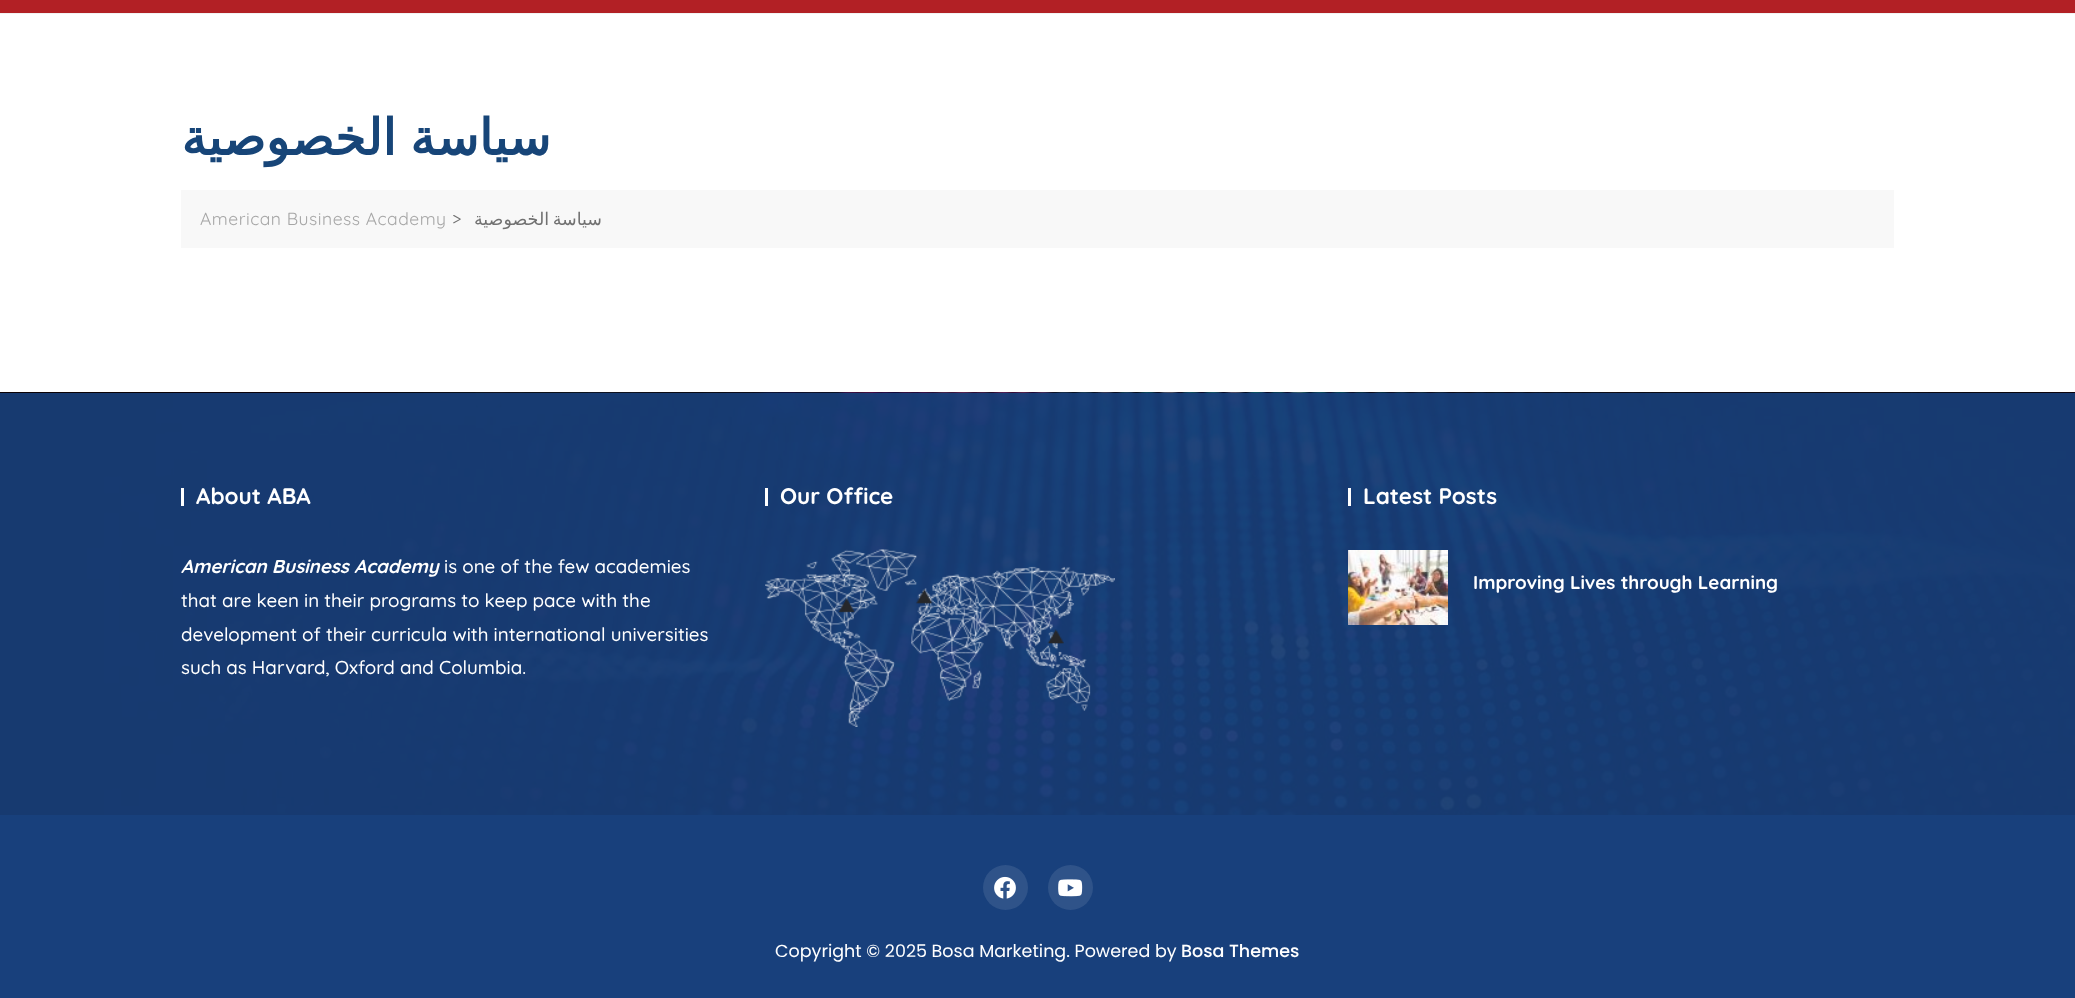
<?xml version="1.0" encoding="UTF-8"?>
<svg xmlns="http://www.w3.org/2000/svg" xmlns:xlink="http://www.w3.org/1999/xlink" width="2075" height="998">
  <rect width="100%" height="100%" fill="#ffffff" />
  <rect width="2075" height="13" fill="#b22025" />
  <rect y="13" width="2075" height="1" fill="#f2f2f2" />
  <rect x="181" y="190" width="1713" height="58" fill="#f8f8f8" />
  <image x="0" y="392" width="2075" height="423" xlink:href="image1.png" />
  <rect y="393" width="2075" height="422" fill="#18407c" fill-opacity="0.9" />
  <rect x="181" y="488" width="3" height="18" fill="#ffffff" />
  <rect x="765" y="488" width="3" height="18" fill="#ffffff" />
  <image x="765" y="549" width="350" height="178" xlink:href="image2.png" />
  <rect x="1348" y="488" width="3" height="18" fill="#ffffff" />
  <image x="1348" y="550" width="100" height="75" xlink:href="image3.png" />
  <rect y="815" width="2075" height="183" fill="#18407c" />
  <circle cx="1005.5" cy="887.5" r="22.5" fill="#2f5389" />
  <image x="994" y="876" width="22" height="23" xlink:href="image4.png" />
  <circle cx="1070.5" cy="887.5" r="22.5" fill="#2f5389" />
  <image x="1058" y="879" width="25" height="18" xlink:href="image5.png" />
  <text x="551" y="155" word-spacing="-2" style="font-family: DejaVu Sans; font-size: 50px; font-weight: bold; direction: rtl; fill: #174578">سياسة الخصوصية</text>
  <text x="200" y="225" style="font-family: Quicksand; font-size: 17.5px; letter-spacing: 0.5px; fill: #a6a6a6">American Business Academy</text>
  <text x="452" y="225" style="font-family: Quicksand; font-size: 17.5px; letter-spacing: 0.5px; fill: #717171">&gt;</text>
  <text x="602" y="225" word-spacing="-2" style="font-family: DejaVu Sans; font-size: 17.5px; letter-spacing: 0.5px; direction: rtl; fill: #717171">سياسة الخصوصية</text>
  <text x="196" y="504" style="font-family: Quicksand; font-size: 22.5px; font-weight: bold; fill: #ffffff">About ABA</text>
  <text x="181" y="573" style="font-family: Quicksand; font-size: 18.75px; font-weight: bold; font-style: italic; fill: #ffffff">American Business Academy</text>
  <text x="444" y="573" style="font-family: Quicksand; font-size: 18.75px; font-weight: 500; fill: #ffffff">is one of the few academies</text>
  <text x="181" y="607" style="font-family: Quicksand; font-size: 18.75px; font-weight: 500; fill: #ffffff">that are keen in their programs to keep pace with the</text>
  <text x="181" y="641" style="font-family: Quicksand; font-size: 18.75px; font-weight: 500; fill: #ffffff">development of their curricula with international universities</text>
  <text x="181" y="674" style="font-family: Quicksand; font-size: 18.75px; font-weight: 500; fill: #ffffff">such as Harvard, Oxford and Columbia.</text>
  <text x="780" y="504" style="font-family: Quicksand; font-size: 22.5px; font-weight: bold; fill: #ffffff">Our Office</text>
  <text x="1363" y="504" style="font-family: Quicksand; font-size: 22.5px; font-weight: bold; fill: #ffffff">Latest Posts</text>
  <text x="1473" y="589" style="font-family: Quicksand; font-size: 18.75px; font-weight: bold; fill: #ffffff">Improving Lives through Learning</text>
  <text x="775" y="957" style="font-family: Poppins; font-size: 17.5px; fill: #ffffff">Copyright © 2025 Bosa Marketing. Powered by</text>
  <text x="1181" y="957" style="font-family: Poppins; font-size: 17.5px; font-weight: 500; fill: #ffffff">Bosa Themes</text>
</svg>
